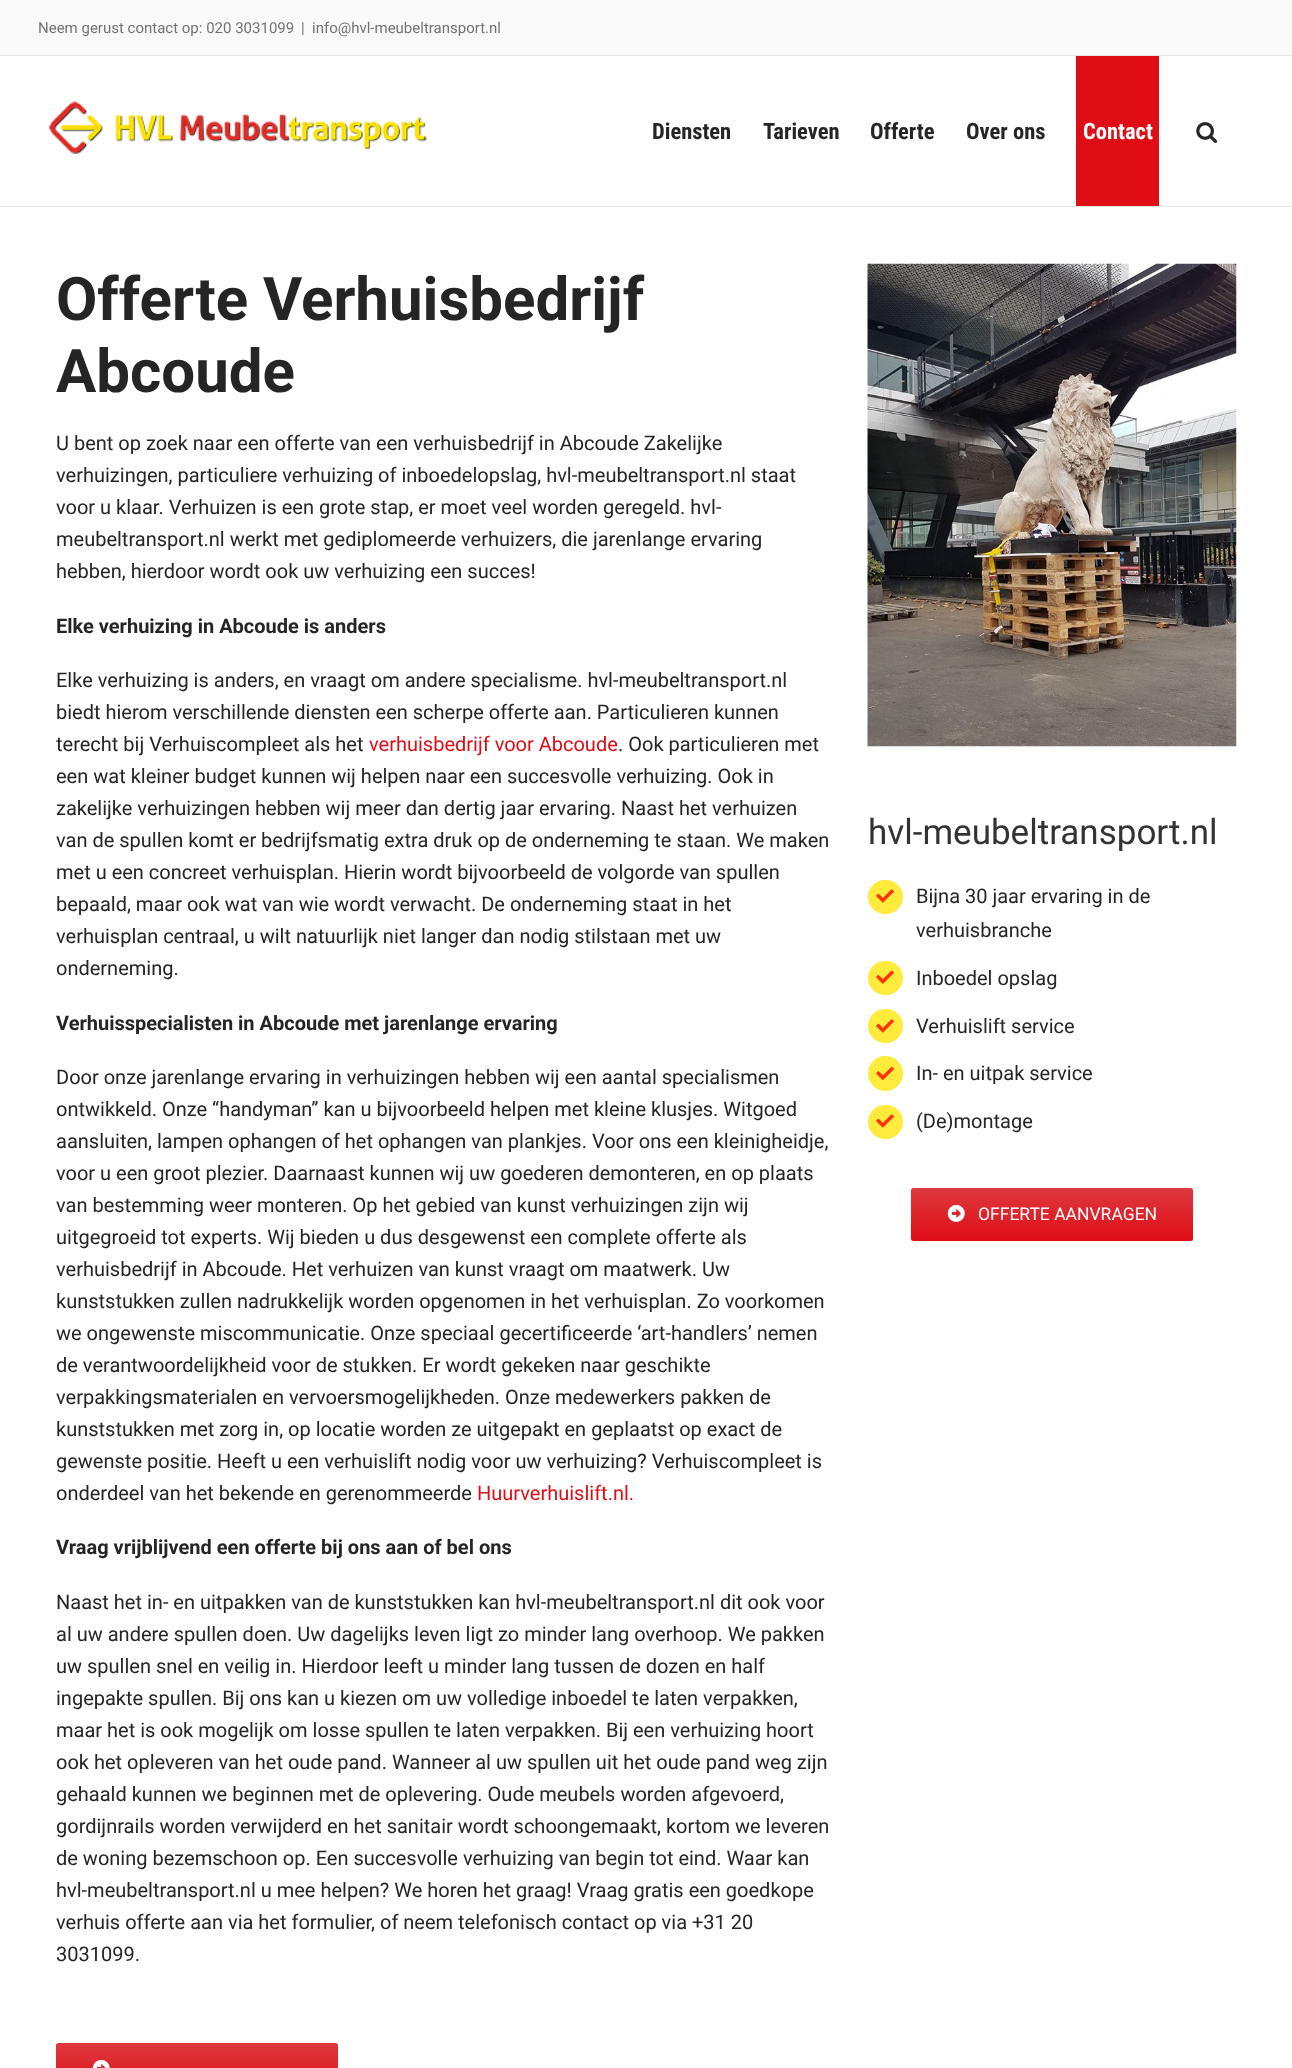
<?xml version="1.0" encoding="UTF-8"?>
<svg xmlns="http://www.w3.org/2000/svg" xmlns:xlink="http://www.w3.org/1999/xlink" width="1292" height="2068">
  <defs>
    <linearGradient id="g1" gradientUnits="userSpaceOnUse" x1="197" y1="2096" x2="197" y2="2043"><stop offset="0" stop-color="#df0d15" /><stop offset="1" stop-color="#dd393f" /></linearGradient>
    <linearGradient id="g2" gradientUnits="userSpaceOnUse" x1="1052" y1="1241" x2="1052" y2="1188"><stop offset="0" stop-color="#df0d15" /><stop offset="1" stop-color="#dd393f" /></linearGradient>
  </defs>
  <rect width="100%" height="100%" fill="#ffffff" />
  <rect width="1292" height="55" fill="#f9f9f9" />
  <rect y="55" width="1292" height="1" fill="#e5e5e5" />
  <rect y="206" width="1292" height="1" fill="#e5e5e5" />
  <image x="48" y="101" width="379" height="53" xlink:href="image1.png" />
  <rect x="1076" y="56" width="83" height="150" fill="#df0d15" />
  <image x="1196" y="122" width="22" height="21" xlink:href="image2.png" />
  <rect x="56" y="2043" width="282" height="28" rx="2.5" fill="url(#g1)" />
  <image x="92" y="2060" width="18" height="8" xlink:href="image3.png" />
  <image x="867" y="263" width="370" height="484" xlink:href="image4.png" />
  <rect x="868" y="880" width="35" height="34" rx="17" fill="#ffeb3b" />
  <image x="876" y="889" width="18" height="14" xlink:href="image5.png" />
  <rect x="868" y="961" width="35" height="34" rx="17" fill="#ffeb3b" />
  <image x="876" y="970" width="18" height="14" xlink:href="image6.png" />
  <rect x="868" y="1009" width="35" height="34" rx="17" fill="#ffeb3b" />
  <image x="876" y="1019" width="18" height="14" xlink:href="image5.png" />
  <circle cx="885.5" cy="1073.5" r="17.5" fill="#ffeb3b" />
  <image x="876" y="1066" width="18" height="14" xlink:href="image7.png" />
  <rect x="868" y="1105" width="35" height="34" rx="17" fill="#ffeb3b" />
  <image x="876" y="1114" width="18" height="14" xlink:href="image5.png" />
  <rect x="911" y="1188" width="282" height="53" rx="2.5" fill="url(#g2)" />
  <image x="947" y="1205" width="18" height="17" xlink:href="image8.png" />
  <text x="38" y="33" style="font-family: Roboto; font-size: 15px; fill: #747474">Neem gerust contact op: 020 3031099</text>
  <text x="301" y="33" style="font-family: Roboto; font-size: 15px; fill: #747474">|</text>
  <text x="312" y="33" style="font-family: Roboto; font-size: 15px; fill: #747474">info@hvl-meubeltransport.nl</text>
  <text x="652" y="139" style="font-family: Roboto Condensed; font-size: 22.5px; font-weight: bold; fill: #252525">Diensten</text>
  <text x="763" y="139" style="font-family: Roboto Condensed; font-size: 22.5px; font-weight: bold; fill: #252525">Tarieven</text>
  <text x="870" y="139" style="font-family: Roboto Condensed; font-size: 22.5px; font-weight: bold; fill: #252525">Offerte</text>
  <text x="966" y="139" style="font-family: Roboto Condensed; font-size: 22.5px; font-weight: bold; fill: #252525">Over ons</text>
  <text x="1083" y="139" style="font-family: Roboto Condensed; font-size: 22.5px; font-weight: bold; fill: #ffffff">Contact</text>
  <text x="56" y="320" style="font-family: Roboto; font-size: 60px; font-weight: bold; fill: #252525">Offerte Verhuisbedrijf</text>
  <text x="56" y="392" style="font-family: Roboto; font-size: 60px; font-weight: bold; fill: #252525">Abcoude</text>
  <text x="56" y="450" style="font-family: Roboto; font-size: 20px; fill: #252525">U bent op zoek naar een offerte van een verhuisbedrijf in Abcoude Zakelijke</text>
  <text x="56" y="482" style="font-family: Roboto; font-size: 20px; fill: #252525">verhuizingen, particuliere verhuizing of inboedelopslag, hvl-meubeltransport.nl staat</text>
  <text x="56" y="514" style="font-family: Roboto; font-size: 20px; fill: #252525">voor u klaar. Verhuizen is een grote stap, er moet veel worden geregeld. hvl-</text>
  <text x="56" y="546" style="font-family: Roboto; font-size: 20px; fill: #252525">meubeltransport.nl werkt met gediplomeerde verhuizers, die jarenlange ervaring</text>
  <text x="56" y="578" style="font-family: Roboto; font-size: 20px; fill: #252525">hebben, hierdoor wordt ook uw verhuizing een succes!</text>
  <text x="56" y="633" style="font-family: Roboto; font-size: 20px; font-weight: bold; fill: #252525">Elke verhuizing in Abcoude is anders</text>
  <text x="56" y="687" style="font-family: Roboto; font-size: 20px; fill: #252525">Elke verhuizing is anders, en vraagt om andere specialisme. hvl-meubeltransport.nl</text>
  <text x="56" y="719" style="font-family: Roboto; font-size: 20px; fill: #252525">biedt hierom verschillende diensten een scherpe offerte aan. Particulieren kunnen</text>
  <text x="56" y="751" style="font-family: Roboto; font-size: 20px; fill: #252525">terecht bij Verhuiscompleet als het</text>
  <text x="369" y="751" style="font-family: Roboto; font-size: 20px; fill: #df0d15">verhuisbedrijf voor Abcoude</text>
  <text x="618" y="751" style="font-family: Roboto; font-size: 20px; fill: #252525">. Ook particulieren met</text>
  <text x="56" y="783" style="font-family: Roboto; font-size: 20px; fill: #252525">een wat kleiner budget kunnen wij helpen naar een succesvolle verhuizing. Ook in</text>
  <text x="56" y="815" style="font-family: Roboto; font-size: 20px; fill: #252525">zakelijke verhuizingen hebben wij meer dan dertig jaar ervaring. Naast het verhuizen</text>
  <text x="56" y="847" style="font-family: Roboto; font-size: 20px; fill: #252525">van de spullen komt er bedrijfsmatig extra druk op de onderneming te staan. We maken</text>
  <text x="56" y="879" style="font-family: Roboto; font-size: 20px; fill: #252525">met u een concreet verhuisplan. Hierin wordt bijvoorbeeld de volgorde van spullen</text>
  <text x="56" y="911" style="font-family: Roboto; font-size: 20px; fill: #252525">bepaald, maar ook wat van wie wordt verwacht. De onderneming staat in het</text>
  <text x="56" y="943" style="font-family: Roboto; font-size: 20px; fill: #252525">verhuisplan centraal, u wilt natuurlijk niet langer dan nodig stilstaan met uw</text>
  <text x="56" y="975" style="font-family: Roboto; font-size: 20px; fill: #252525">onderneming.</text>
  <text x="56" y="1030" style="font-family: Roboto; font-size: 20px; font-weight: bold; fill: #252525">Verhuisspecialisten in Abcoude met jarenlange ervaring</text>
  <text x="56" y="1084" style="font-family: Roboto; font-size: 20px; fill: #252525">Door onze jarenlange ervaring in verhuizingen hebben wij een aantal specialismen</text>
  <text x="56" y="1116" style="font-family: Roboto; font-size: 20px; fill: #252525">ontwikkeld. Onze “handyman” kan u bijvoorbeeld helpen met kleine klusjes. Witgoed</text>
  <text x="56" y="1148" style="font-family: Roboto; font-size: 20px; fill: #252525">aansluiten, lampen ophangen of het ophangen van plankjes. Voor ons een kleinigheidje,</text>
  <text x="56" y="1180" style="font-family: Roboto; font-size: 20px; fill: #252525">voor u een groot plezier. Daarnaast kunnen wij uw goederen demonteren, en op plaats</text>
  <text x="56" y="1212" style="font-family: Roboto; font-size: 20px; fill: #252525">van bestemming weer monteren. Op het gebied van kunst verhuizingen zijn wij</text>
  <text x="56" y="1244" style="font-family: Roboto; font-size: 20px; fill: #252525">uitgegroeid tot experts. Wij bieden u dus desgewenst een complete offerte als</text>
  <text x="56" y="1276" style="font-family: Roboto; font-size: 20px; fill: #252525">verhuisbedrijf in Abcoude. Het verhuizen van kunst vraagt om maatwerk. Uw</text>
  <text x="56" y="1308" style="font-family: Roboto; font-size: 20px; fill: #252525">kunststukken zullen nadrukkelijk worden opgenomen in het verhuisplan. Zo voorkomen</text>
  <text x="56" y="1340" style="font-family: Roboto; font-size: 20px; fill: #252525">we ongewenste miscommunicatie. Onze speciaal gecertificeerde ‘art-handlers’ nemen</text>
  <text x="56" y="1372" style="font-family: Roboto; font-size: 20px; fill: #252525">de verantwoordelijkheid voor de stukken. Er wordt gekeken naar geschikte</text>
  <text x="56" y="1404" style="font-family: Roboto; font-size: 20px; fill: #252525">verpakkingsmaterialen en vervoersmogelijkheden. Onze medewerkers pakken de</text>
  <text x="56" y="1436" style="font-family: Roboto; font-size: 20px; fill: #252525">kunststukken met zorg in, op locatie worden ze uitgepakt en geplaatst op exact de</text>
  <text x="56" y="1468" style="font-family: Roboto; font-size: 20px; fill: #252525">gewenste positie. Heeft u een verhuislift nodig voor uw verhuizing? Verhuiscompleet is</text>
  <text x="56" y="1500" style="font-family: Roboto; font-size: 20px; fill: #252525">onderdeel van het bekende en gerenommeerde</text>
  <text x="477" y="1500" style="font-family: Roboto; font-size: 20px; fill: #df0d15">Huurverhuislift.nl.</text>
  <text x="56" y="1554" style="font-family: Roboto; font-size: 20px; font-weight: bold; fill: #252525">Vraag vrijblijvend een offerte bij ons aan of bel ons</text>
  <text x="56" y="1609" style="font-family: Roboto; font-size: 20px; fill: #252525">Naast het in- en uitpakken van de kunststukken kan hvl-meubeltransport.nl dit ook voor</text>
  <text x="56" y="1641" style="font-family: Roboto; font-size: 20px; fill: #252525">al uw andere spullen doen. Uw dagelijks leven ligt zo minder lang overhoop. We pakken</text>
  <text x="56" y="1673" style="font-family: Roboto; font-size: 20px; fill: #252525">uw spullen snel en veilig in. Hierdoor leeft u minder lang tussen de dozen en half</text>
  <text x="56" y="1705" style="font-family: Roboto; font-size: 20px; fill: #252525">ingepakte spullen. Bij ons kan u kiezen om uw volledige inboedel te laten verpakken,</text>
  <text x="56" y="1737" style="font-family: Roboto; font-size: 20px; fill: #252525">maar het is ook mogelijk om losse spullen te laten verpakken. Bij een verhuizing hoort</text>
  <text x="56" y="1769" style="font-family: Roboto; font-size: 20px; fill: #252525">ook het opleveren van het oude pand. Wanneer al uw spullen uit het oude pand weg zijn</text>
  <text x="56" y="1801" style="font-family: Roboto; font-size: 20px; fill: #252525">gehaald kunnen we beginnen met de oplevering. Oude meubels worden afgevoerd,</text>
  <text x="56" y="1833" style="font-family: Roboto; font-size: 20px; fill: #252525">gordijnrails worden verwijderd en het sanitair wordt schoongemaakt, kortom we leveren</text>
  <text x="56" y="1865" style="font-family: Roboto; font-size: 20px; fill: #252525">de woning bezemschoon op. Een succesvolle verhuizing van begin tot eind. Waar kan</text>
  <text x="56" y="1897" style="font-family: Roboto; font-size: 20px; fill: #252525">hvl-meubeltransport.nl u mee helpen? We horen het graag! Vraag gratis een goedkope</text>
  <text x="56" y="1929" style="font-family: Roboto; font-size: 20px; fill: #252525">verhuis offerte aan via het formulier, of neem telefonisch contact op via +31 20</text>
  <text x="56" y="1961" style="font-family: Roboto; font-size: 20px; fill: #252525">3031099.</text>
  <text x="868" y="844" style="font-family: Roboto; font-size: 35px; fill: #333333">hvl-meubeltransport.nl</text>
  <text x="916" y="903" style="font-family: Roboto; font-size: 20px; fill: #252525">Bijna 30 jaar ervaring in de</text>
  <text x="916" y="937" style="font-family: Roboto; font-size: 20px; fill: #252525">verhuisbranche</text>
  <text x="916" y="985" style="font-family: Roboto; font-size: 20px; fill: #252525">Inboedel opslag</text>
  <text x="916" y="1033" style="font-family: Roboto; font-size: 20px; fill: #252525">Verhuislift service</text>
  <text x="916" y="1080" style="font-family: Roboto; font-size: 20px; fill: #252525">In- en uitpak service</text>
  <text x="916" y="1128" style="font-family: Roboto; font-size: 20px; fill: #252525">(De)montage</text>
  <text x="978" y="1220" style="font-family: Roboto; font-size: 17.5px; fill: #ffffff">OFFERTE AANVRAGEN</text>
</svg>
